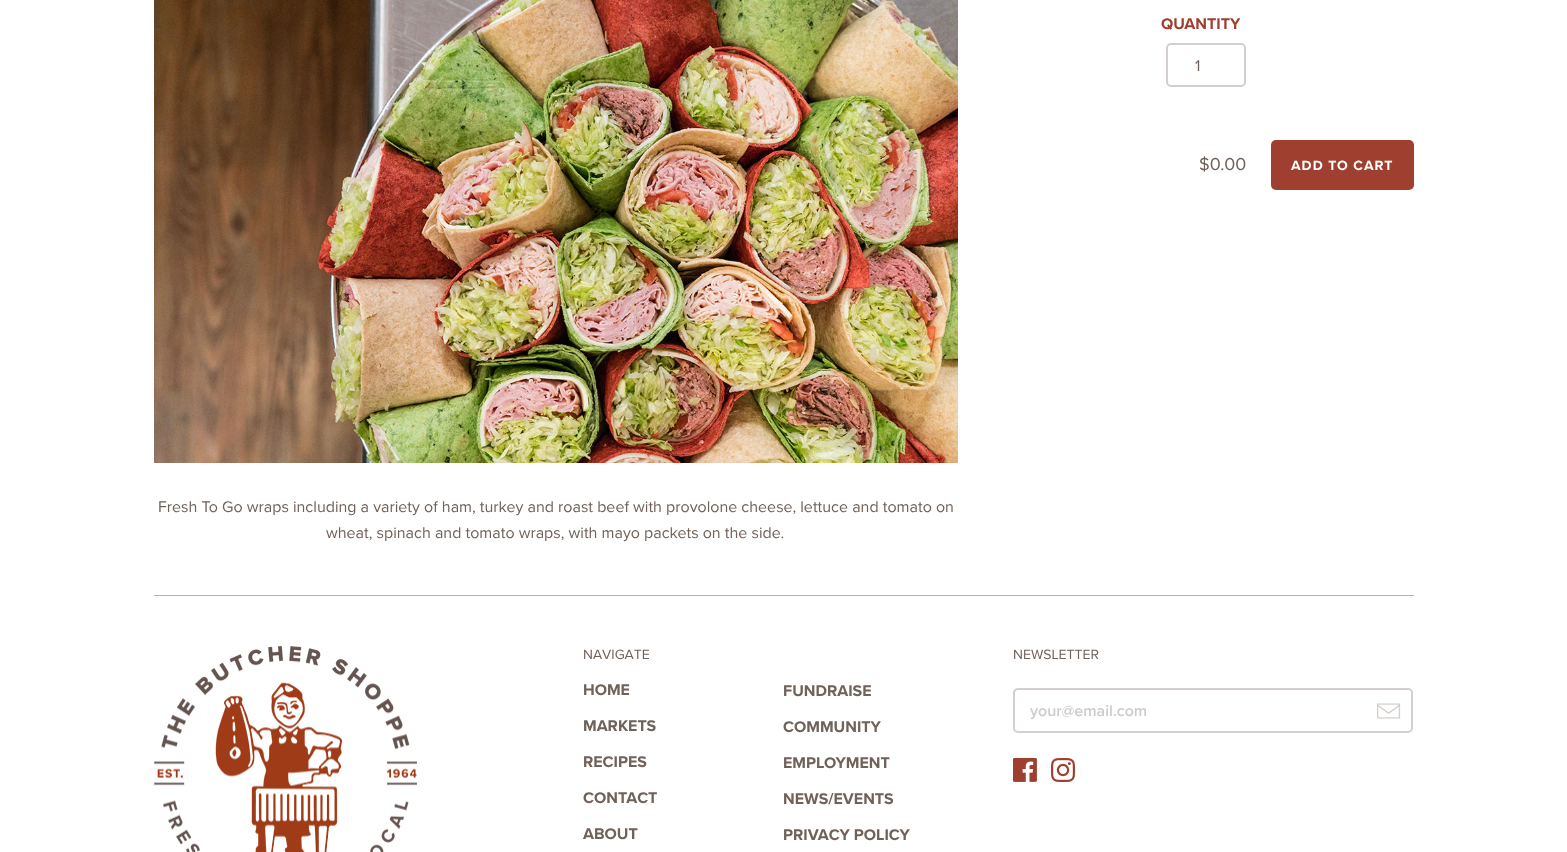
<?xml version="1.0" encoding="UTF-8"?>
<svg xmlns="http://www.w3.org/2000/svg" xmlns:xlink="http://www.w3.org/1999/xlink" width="1567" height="852">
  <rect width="100%" height="100%" fill="#ffffff" />
  <rect x="1167" y="44" width="78" height="42" rx="4" fill="none" stroke="#d4cfcd" stroke-width="2" />
  <rect x="1271" y="140" width="143" height="50" rx="5" fill="#9f3f2f" />
  <image x="154" y="0" width="804" height="463" xlink:href="image1.png" />
  <rect x="154" y="595" width="1260" height="1" fill="#b7b0ac" />
  <image x="154" y="646" width="263" height="206" xlink:href="image2.png" />
  <rect x="1014" y="689" width="398" height="43" rx="4" fill="none" stroke="#d4cfcd" stroke-width="2" />
  <image x="1377" y="703" width="24" height="16" xlink:href="image3.png" />
  <image x="1013" y="758" width="24" height="24" xlink:href="image4.png" />
  <image x="1051" y="758" width="24" height="24" xlink:href="image5.png" />
  <text x="1161" y="29" style="font-family: Proxima Nova; font-size: 16px; font-weight: bold; fill: #9f3f2f">QUANTITY</text>
  <text x="1195" y="71" style="font-family: Proxima Nova; font-size: 16px; fill: #706159">1</text>
  <text x="1199" y="170" style="font-family: Proxima Nova; font-size: 18px; fill: #706159">$0.00</text>
  <text x="1291" y="170" style="font-family: Proxima Nova; font-size: 14px; font-weight: bold; letter-spacing: 1px; fill: #ffffff">ADD TO CART</text>
  <text x="158" y="512" style="font-family: Proxima Nova; font-size: 16px; fill: #706159">Fresh To Go wraps including a variety of ham, turkey and roast beef with provolone cheese, lettuce and tomato on</text>
  <text x="326" y="538" style="font-family: Proxima Nova; font-size: 16px; fill: #706159">wheat, spinach and tomato wraps, with mayo packets on the side.</text>
  <text x="583" y="659" style="font-family: Proxima Nova; font-size: 14px; fill: #706159">NAVIGATE</text>
  <text x="583" y="695" style="font-family: Proxima Nova; font-size: 16px; font-weight: bold; fill: #706159">HOME</text>
  <text x="583" y="731" style="font-family: Proxima Nova; font-size: 16px; font-weight: bold; fill: #706159">MARKETS</text>
  <text x="583" y="767" style="font-family: Proxima Nova; font-size: 16px; font-weight: bold; fill: #706159">RECIPES</text>
  <text x="583" y="803" style="font-family: Proxima Nova; font-size: 16px; font-weight: bold; fill: #706159">CONTACT</text>
  <text x="583" y="839" style="font-family: Proxima Nova; font-size: 16px; font-weight: bold; fill: #706159">ABOUT</text>
  <text x="783" y="696" style="font-family: Proxima Nova; font-size: 16px; font-weight: bold; fill: #706159">FUNDRAISE</text>
  <text x="783" y="732" style="font-family: Proxima Nova; font-size: 16px; font-weight: bold; fill: #706159">COMMUNITY</text>
  <text x="783" y="768" style="font-family: Proxima Nova; font-size: 16px; font-weight: bold; fill: #706159">EMPLOYMENT</text>
  <text x="783" y="804" style="font-family: Proxima Nova; font-size: 16px; font-weight: bold; fill: #706159">NEWS/EVENTS</text>
  <text x="783" y="840" style="font-family: Proxima Nova; font-size: 16px; font-weight: bold; fill: #706159">PRIVACY POLICY</text>
  <text x="1013" y="659" style="font-family: Proxima Nova; font-size: 14px; fill: #706159">NEWSLETTER</text>
  <text x="1030" y="716" style="font-family: Proxima Nova; font-size: 16px; font-weight: 600; fill: #cccccc">your@email.com</text>
</svg>
